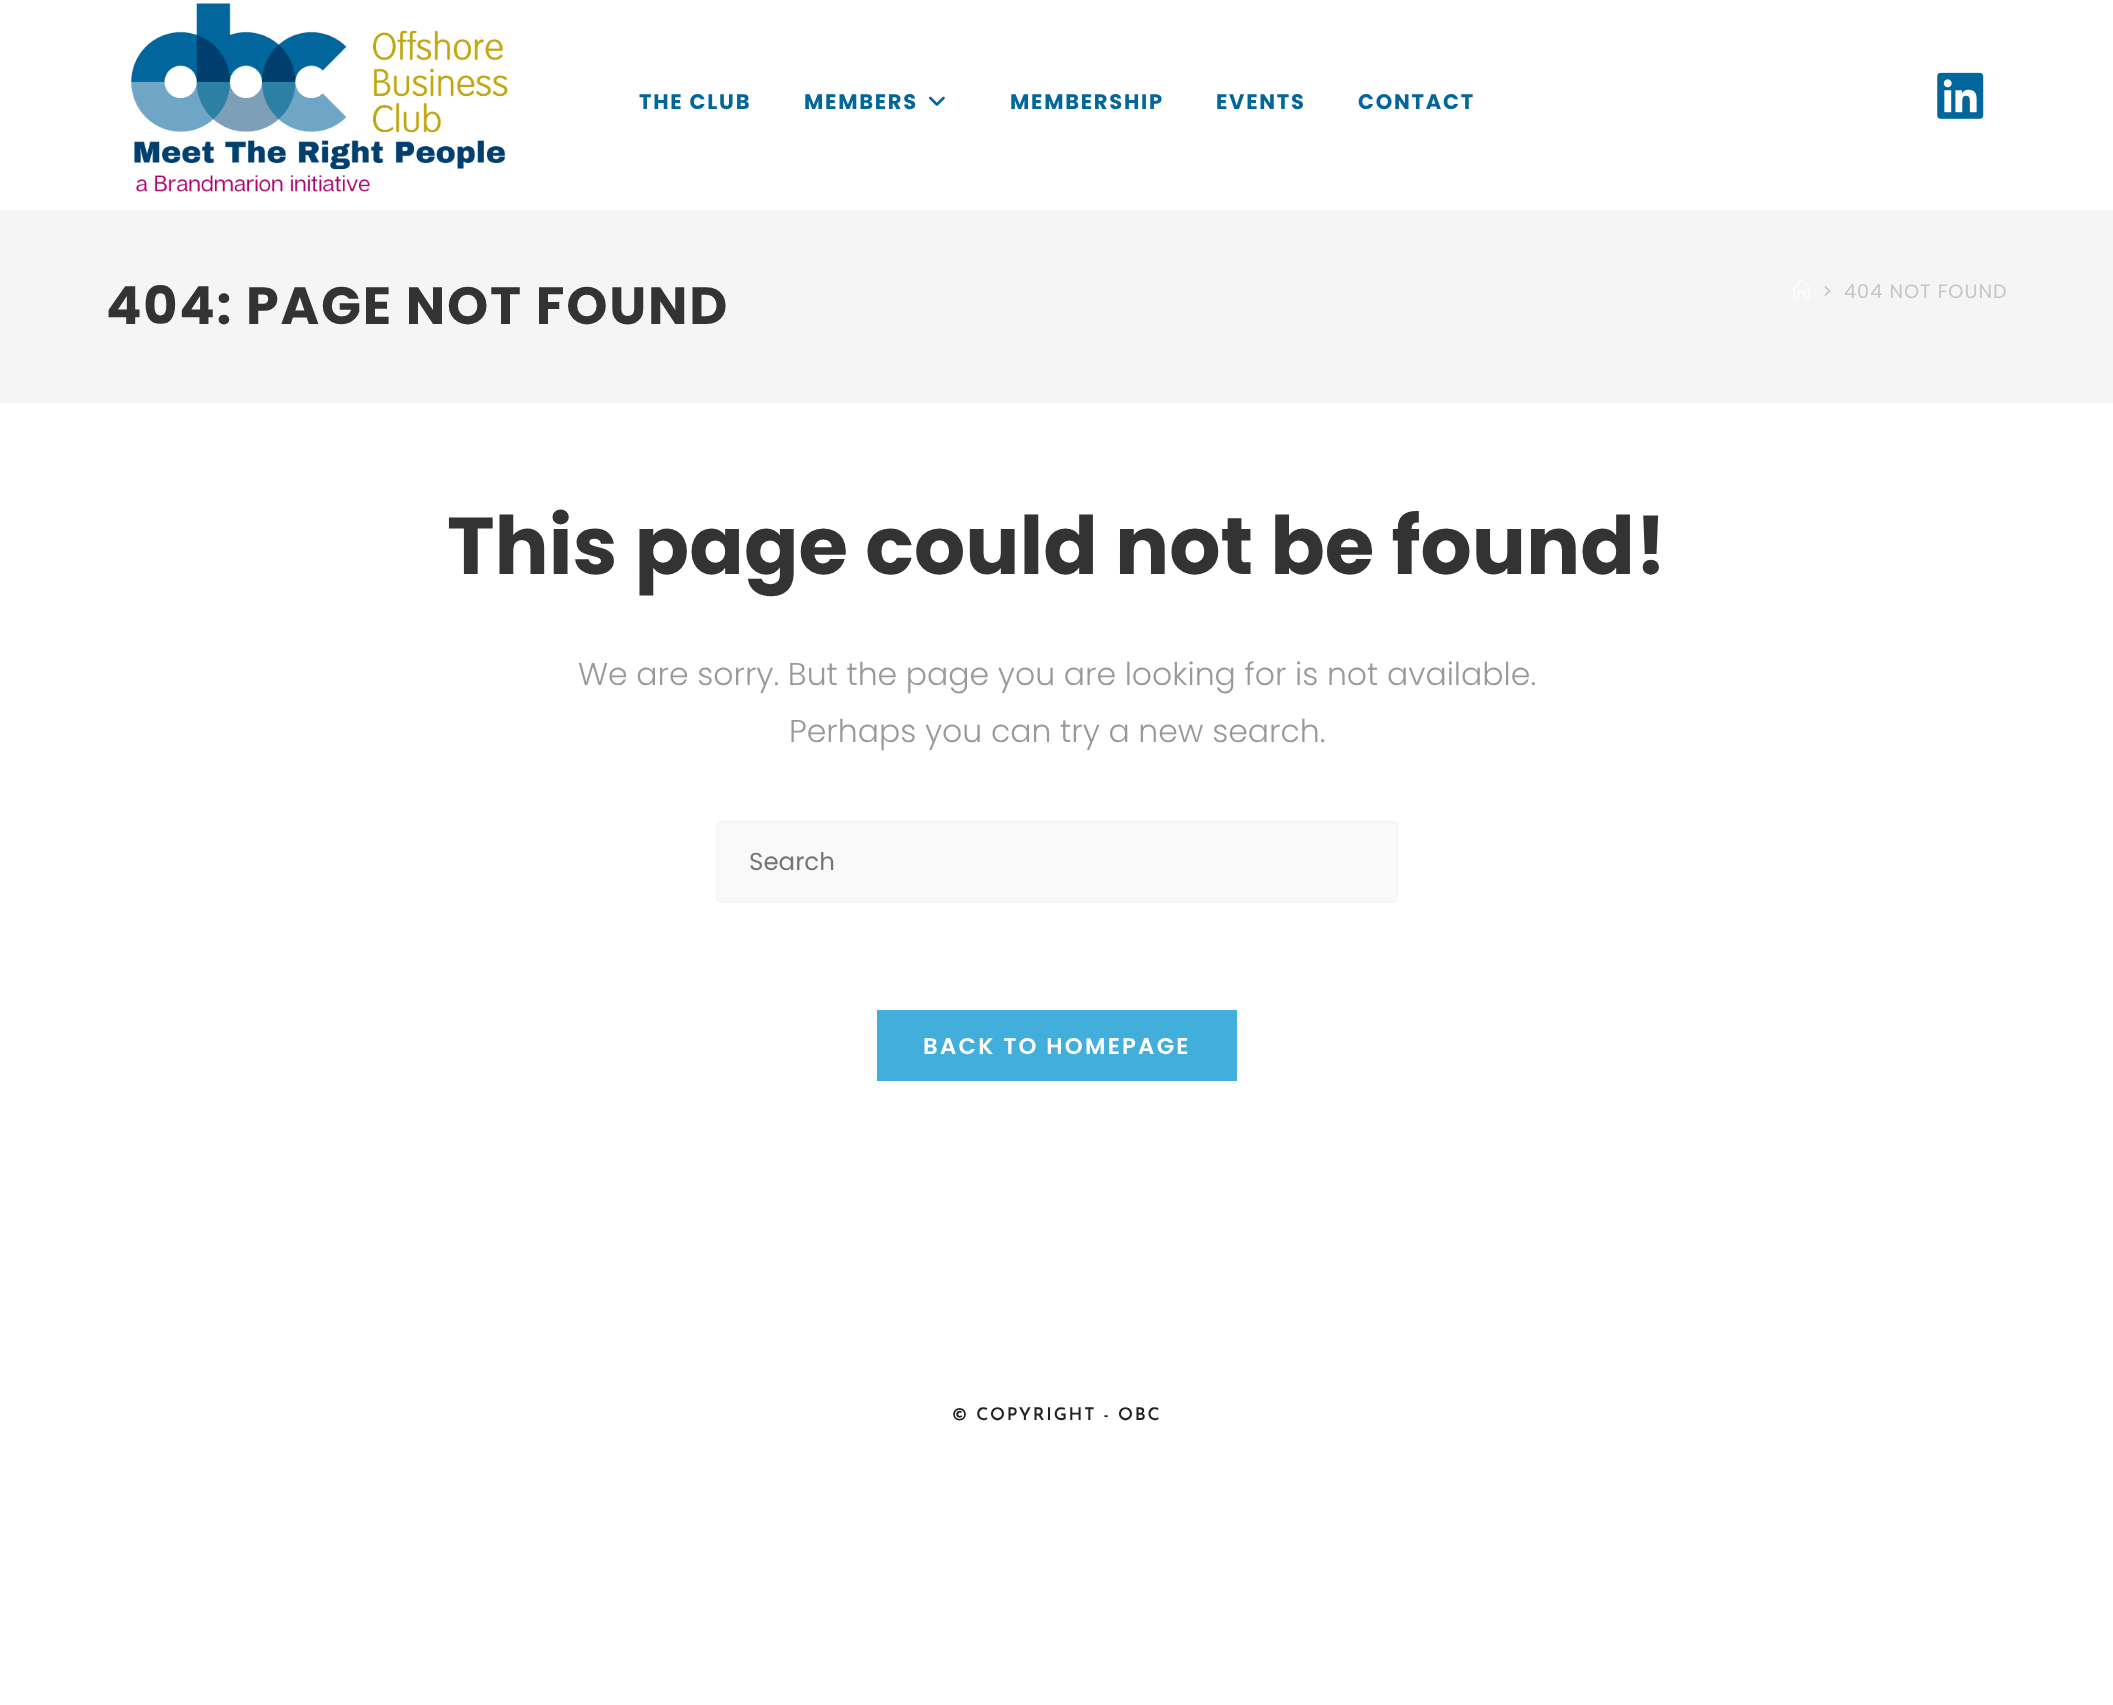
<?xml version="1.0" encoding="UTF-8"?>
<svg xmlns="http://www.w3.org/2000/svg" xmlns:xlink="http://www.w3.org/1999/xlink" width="2113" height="1705">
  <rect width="100%" height="100%" fill="#ffffff" />
  <image x="131" y="3" width="377" height="189" xlink:href="image1.png" />
  <image x="929" y="96" width="16" height="10" xlink:href="image2.png" />
  <image x="1937" y="72" width="47" height="47" xlink:href="image3.png" />
  <rect y="210" width="2113" height="193" fill="#f5f5f5" />
  <image x="1792" y="279" width="19" height="20" xlink:href="image4.png" />
  <rect x="717" y="822" width="680" height="80" rx="4" fill="#f9f9f9" stroke="#f5f5f5" stroke-width="2" />
  <rect x="877" y="1010" width="360" height="71" fill="#42aedc" />
  <text x="639" y="109" style="font-family: Poppins; font-size: 21px; font-weight: bold; letter-spacing: 1.75px; fill: #00669b">THE CLUB</text>
  <text x="804" y="109" style="font-family: Poppins; font-size: 21px; font-weight: bold; letter-spacing: 1.75px; fill: #00669b">MEMBERS</text>
  <text x="1010" y="109" style="font-family: Poppins; font-size: 21px; font-weight: bold; letter-spacing: 1.75px; fill: #00669b">MEMBERSHIP</text>
  <text x="1216" y="109" style="font-family: Poppins; font-size: 21px; font-weight: bold; letter-spacing: 1.75px; fill: #00669b">EVENTS</text>
  <text x="1358" y="109" style="font-family: Poppins; font-size: 21px; font-weight: bold; letter-spacing: 1.75px; fill: #00669b">CONTACT</text>
  <text x="106" y="324" style="font-family: Poppins; font-size: 52.5px; font-weight: bold; letter-spacing: 1.75px; fill: #333333">404: PAGE NOT FOUND</text>
  <text x="1822" y="298" style="font-family: Poppins; font-size: 19.25px; letter-spacing: 1px; fill: #c6c6c6">&gt;</text>
  <text x="1844" y="298" style="font-family: Poppins; font-size: 19.25px; letter-spacing: 1px; fill: #c6c6c6">404 NOT FOUND</text>
  <text x="447" y="574" style="font-family: Poppins; font-size: 80.5px; font-weight: bold; fill: #333333">This page could not be found!</text>
  <text x="578" y="685" style="font-family: Poppins; font-size: 31.5px; font-weight: 300; fill: #999999">We are sorry. But the page you are looking for is not available.</text>
  <text x="789" y="742" style="font-family: Poppins; font-size: 31.5px; font-weight: 300; fill: #999999">Perhaps you can try a new search.</text>
  <text x="749" y="870" style="font-family: Poppins; font-size: 24.5px; fill: #757575">Search</text>
  <text x="923" y="1054" style="font-family: Poppins; font-size: 22.75px; font-weight: 600; letter-spacing: 2.25px; fill: #ffffff">BACK TO HOMEPAGE</text>
  <text x="952" y="1420" style="font-family: Josefin Sans; font-size: 17.5px; font-weight: 600; letter-spacing: 1.75px; fill: #222222">© COPYRIGHT - OBC</text>
</svg>
